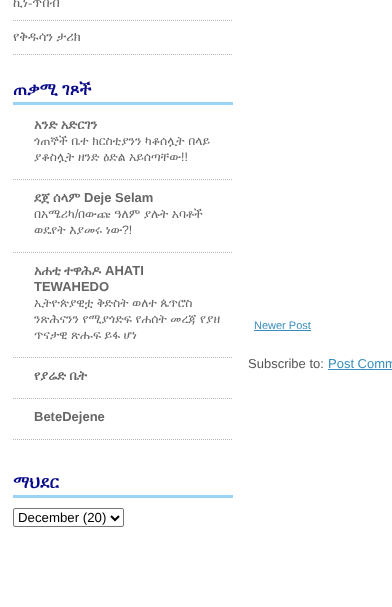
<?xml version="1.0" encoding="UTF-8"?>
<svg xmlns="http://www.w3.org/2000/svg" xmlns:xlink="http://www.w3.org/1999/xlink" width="392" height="607">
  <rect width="100%" height="100%" fill="#ffffff" />
  <path d="M 13 20.5 h 220" fill="none" stroke="#b9b9b9" stroke-dasharray="1 1" />
  <path d="M 13 54.5 h 220" fill="none" stroke="#b9b9b9" stroke-dasharray="1 1" />
  <rect x="13" y="102" width="220" height="3" fill="#9bd2f4" />
  <path d="M 13 179.5 h 220" fill="none" stroke="#b9b9b9" stroke-dasharray="1 1" />
  <path d="M 13 252.5 h 220" fill="none" stroke="#b9b9b9" stroke-dasharray="1 1" />
  <path d="M 13 357.5 h 220" fill="none" stroke="#b9b9b9" stroke-dasharray="1 1" />
  <path d="M 13 398.5 h 220" fill="none" stroke="#b9b9b9" stroke-dasharray="1 1" />
  <path d="M 13 439.5 h 220" fill="none" stroke="#b9b9b9" stroke-dasharray="1 1" />
  <rect x="13" y="495" width="220" height="3" fill="#9bd2f4" />
  <rect x="13.5" y="508.5" width="110" height="18" rx="1.5" fill="none" stroke="#767676" />
  <path d="M 111 516 l 4 4 l 4 -4" fill="none" stroke="#000000" stroke-width="2" />
  <rect x="254" y="330" width="57" height="1" fill="#388dbd" />
  <rect x="328" y="369" width="64" height="1" fill="#388dbd" />
  <text x="13" y="7" style="font-family: FreeSerif; font-size: 13px; fill: #666666">ኪነ-ጥበብ</text>
  <text x="13" y="41" style="font-family: FreeSerif; font-size: 13px; fill: #666666">የቅዱሳን ታሪክ</text>
  <text x="13" y="95" style="font-family: FreeSerif; font-size: 17px; font-weight: bold; fill: #08088a">ጠቃሚ ገጾች</text>
  <text x="34" y="129" style="font-family: FreeSerif; font-size: 13px; font-weight: bold; fill: #666666">አንድ አድርገን</text>
  <text x="34" y="145" word-spacing="0.5" style="font-family: FreeSerif; font-size: 12.3px; fill: #666666">ጎጠኞች ቤተ ክርስቲያንን ካቆሰሏት በላይ</text>
  <text x="34" y="161" word-spacing="0.5" style="font-family: FreeSerif; font-size: 12.3px; fill: #666666">ያቆስሏት ዘንድ ዕድል አይሰጣቸው</text>
  <text x="181" y="161" style="font-family: Liberation Sans; font-size: 12.3px; fill: #666666">!!</text>
  <text x="34" y="202" style="font-family: FreeSerif; font-size: 13px; font-weight: bold; fill: #666666">ደጀ</text>
  <text x="53" y="202" style="font-family: FreeSerif; font-size: 13px; font-weight: bold; fill: #666666">ሰላም</text>
  <text x="84" y="202" style="font-family: Liberation Sans; font-size: 13px; font-weight: bold; fill: #666666">Deje Selam</text>
  <text x="34" y="218" style="font-family: FreeSerif; font-size: 12.3px; fill: #666666">በአሜሪካ</text>
  <text x="75" y="218" style="font-family: Liberation Sans; font-size: 12.3px; fill: #666666">/</text>
  <text x="78" y="218" word-spacing="0.5" style="font-family: FreeSerif; font-size: 12.3px; fill: #666666">በውጩ ዓለም ያሉት አባቶች</text>
  <text x="34" y="234" word-spacing="0.5" style="font-family: FreeSerif; font-size: 12.3px; fill: #666666">ወዴየት እያመሩ ነው</text>
  <text x="122" y="234" style="font-family: Liberation Sans; font-size: 12.3px; fill: #666666">?!</text>
  <text x="34" y="275" style="font-family: FreeSerif; font-size: 13px; font-weight: bold; fill: #666666">አሐቲ ተዋሕዶ</text>
  <text x="105" y="275" style="font-family: Liberation Sans; font-size: 13px; font-weight: bold; fill: #666666">AHATI</text>
  <text x="34" y="291" style="font-family: Liberation Sans; font-size: 13px; font-weight: bold; fill: #666666">TEWAHEDO</text>
  <text x="34" y="307" word-spacing="0.5" style="font-family: FreeSerif; font-size: 12.3px; fill: #666666">ኢትዮጵያዊቷ ቅድስት ወለተ ጴጥሮስ</text>
  <text x="34" y="323" word-spacing="0.5" style="font-family: FreeSerif; font-size: 12.3px; fill: #666666">ንጽሕናንን የሚያጎድፍ የሐሰት መረጃ የያዘ</text>
  <text x="34" y="339" word-spacing="0.5" style="font-family: FreeSerif; font-size: 12.3px; fill: #666666">ጥናታዊ ጽሑፍ ይፋ ሆነ</text>
  <text x="34" y="380" style="font-family: FreeSerif; font-size: 13px; font-weight: bold; fill: #666666">የያሬድ ቤት</text>
  <text x="34" y="421" style="font-family: Liberation Sans; font-size: 13px; font-weight: bold; fill: #666666">BeteDejene</text>
  <text x="13" y="488" style="font-family: FreeSerif; font-size: 17px; font-weight: bold; fill: #08088a">ማህደር</text>
  <text x="18" y="522" style="font-family: Liberation Sans; font-size: 13.25px; fill: #000000">December (20)</text>
  <text x="254" y="329" style="font-family: Liberation Sans; font-size: 11px; fill: #388dbd">Newer Post</text>
  <text x="248" y="368" style="font-family: Liberation Sans; font-size: 13px; fill: #555555">Subscribe to:</text>
  <text x="328" y="368" style="font-family: Liberation Sans; font-size: 13px; fill: #388dbd">Post Comm</text>
</svg>
